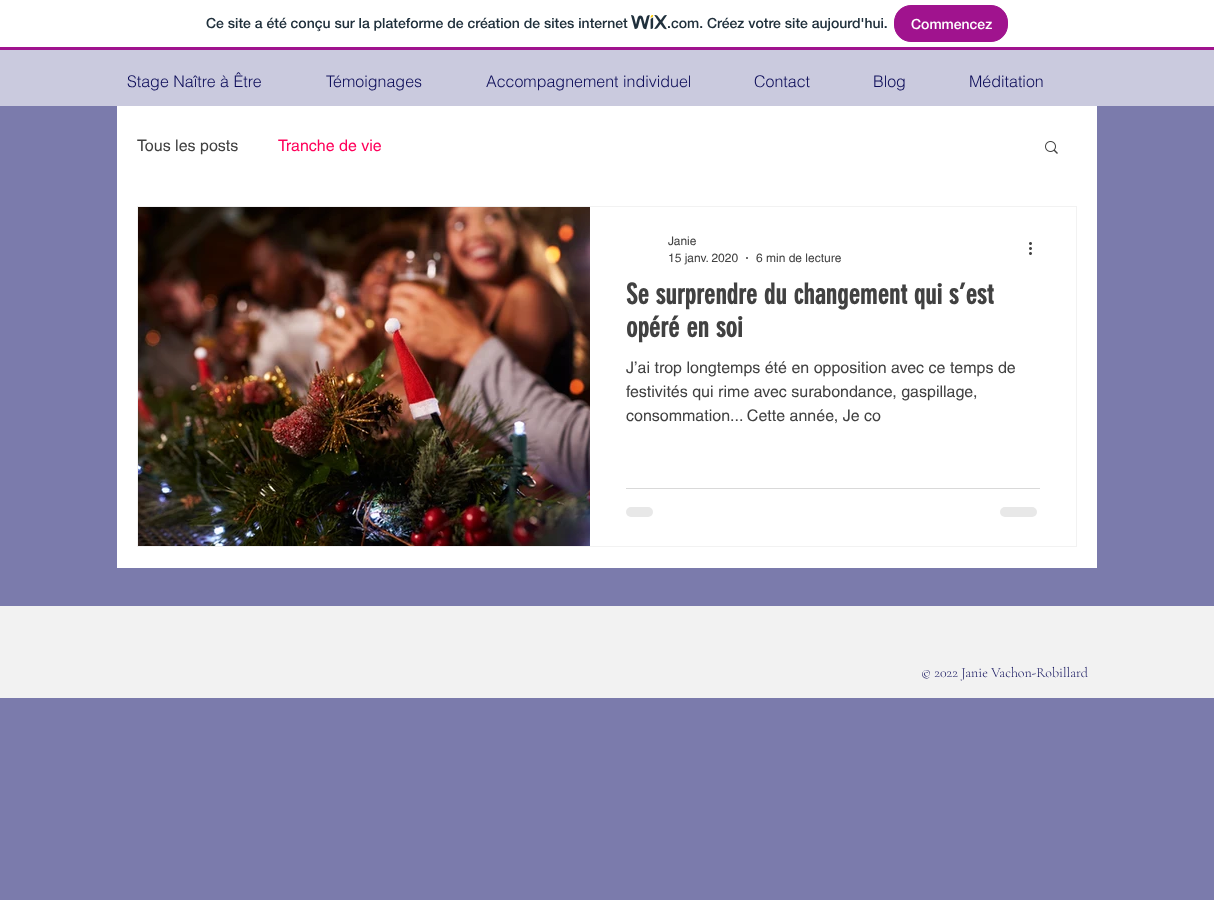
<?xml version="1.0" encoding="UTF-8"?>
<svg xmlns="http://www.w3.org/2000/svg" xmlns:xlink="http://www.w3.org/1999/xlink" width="1214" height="900">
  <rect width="100%" height="100%" fill="#ffffff" />
  <rect y="47" width="1214" height="3" fill="#a0138e" />
  <image x="631" y="15" width="36" height="15" xlink:href="image1.png" />
  <rect x="894.5" y="5.5" width="113" height="36" rx="16.5" fill="#a0138e" stroke="#a0138e" />
  <rect y="50" width="1214" height="56" fill="#cacade" />
  <rect y="106" width="1214" height="794" fill="#7b7bac" />
  <rect x="117" y="106" width="980" height="462" fill="#ffffff" />
  <image x="1045" y="141" width="13" height="13" xlink:href="image2.png" />
  <rect x="137.5" y="206.5" width="939" height="340" fill="none" stroke="#f2f2f2" />
  <image x="138" y="207" width="452" height="339" xlink:href="image3.png" />
  <circle cx="747" cy="258" r="1" fill="#414141" />
  <image x="1029" y="242" width="3" height="13" xlink:href="image4.png" />
  <rect x="626" y="488" width="414" height="1" fill="#d9d9d9" />
  <rect x="626" y="507" width="27" height="10" rx="5" fill="#e8e8e8" />
  <rect x="1000" y="507" width="37" height="10" rx="5" fill="#e8e8e8" />
  <rect y="606" width="1214" height="92" fill="#f2f2f2" />
  <text x="206" y="28" style="font-family: 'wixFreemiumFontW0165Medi'; font-size: 14px; font-weight: 500; fill: #20303c">Ce site a été conçu sur la plateforme de création de sites internet</text>
  <text x="667" y="28" style="font-family: 'wixFreemiumFontW0165Medi'; font-size: 14px; font-weight: 500; fill: #20303c">.com. Créez votre site aujourd'hui.</text>
  <text x="911" y="29" style="font-family: 'wixFreemiumFontW0165Medi'; font-size: 14px; font-weight: 500; fill: #ffffff">Commencez</text>
  <text x="127" y="87" style="font-family: helvetica; font-size: 16px; font-weight: 300; fill: #0d0d59">Stage Naître à Être</text>
  <text x="326" y="87" style="font-family: helvetica; font-size: 16px; font-weight: 300; fill: #0d0d59">Témoignages</text>
  <text x="486" y="87" style="font-family: helvetica; font-size: 16px; font-weight: 300; fill: #0d0d59">Accompagnement individuel</text>
  <text x="754" y="87" style="font-family: helvetica; font-size: 16px; font-weight: 300; fill: #0d0d59">Contact</text>
  <text x="873" y="87" style="font-family: helvetica; font-size: 16px; font-weight: 300; fill: #0d0d59">Blog</text>
  <text x="969" y="87" style="font-family: helvetica; font-size: 16px; font-weight: 300; fill: #0d0d59">Méditation</text>
  <text x="137" y="151" style="font-family: helvetica; font-size: 16px; fill: #414141">Tous les posts</text>
  <text x="278" y="151" style="font-family: helvetica; font-size: 16px; fill: #ff005a">Tranche de vie</text>
  <text x="668" y="245" style="font-family: helvetica; font-size: 12px; fill: #414141">Janie</text>
  <text x="668" y="262" style="font-family: helvetica; font-size: 12px; fill: #414141">15 janv. 2020</text>
  <text x="756" y="262" style="font-family: helvetica; font-size: 12px; fill: #414141">6 min de lecture</text>
  <text x="626" y="304" style="font-family: 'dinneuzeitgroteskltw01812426'; font-size: 28px; font-weight: bold; fill: #414141">Se surprendre du changement qui s’est</text>
  <text x="626" y="337" style="font-family: 'dinneuzeitgroteskltw01812426'; font-size: 28px; font-weight: bold; fill: #414141">opéré en soi</text>
  <text x="626" y="373" style="font-family: helvetica; font-size: 16px; fill: #414141">J’ai trop longtemps été en opposition avec ce temps de</text>
  <text x="626" y="397" style="font-family: helvetica; font-size: 16px; fill: #414141">festivités qui rime avec surabondance, gaspillage,</text>
  <text x="626" y="421" style="font-family: helvetica; font-size: 16px; fill: #414141">consommation... Cette année, Je co</text>
  <text x="921" y="677" style="font-family: Cormorant Garamond; font-size: 14px; font-weight: 300; fill: #0d0d59">© 2022 Janie Vachon-Robillard</text>
</svg>
